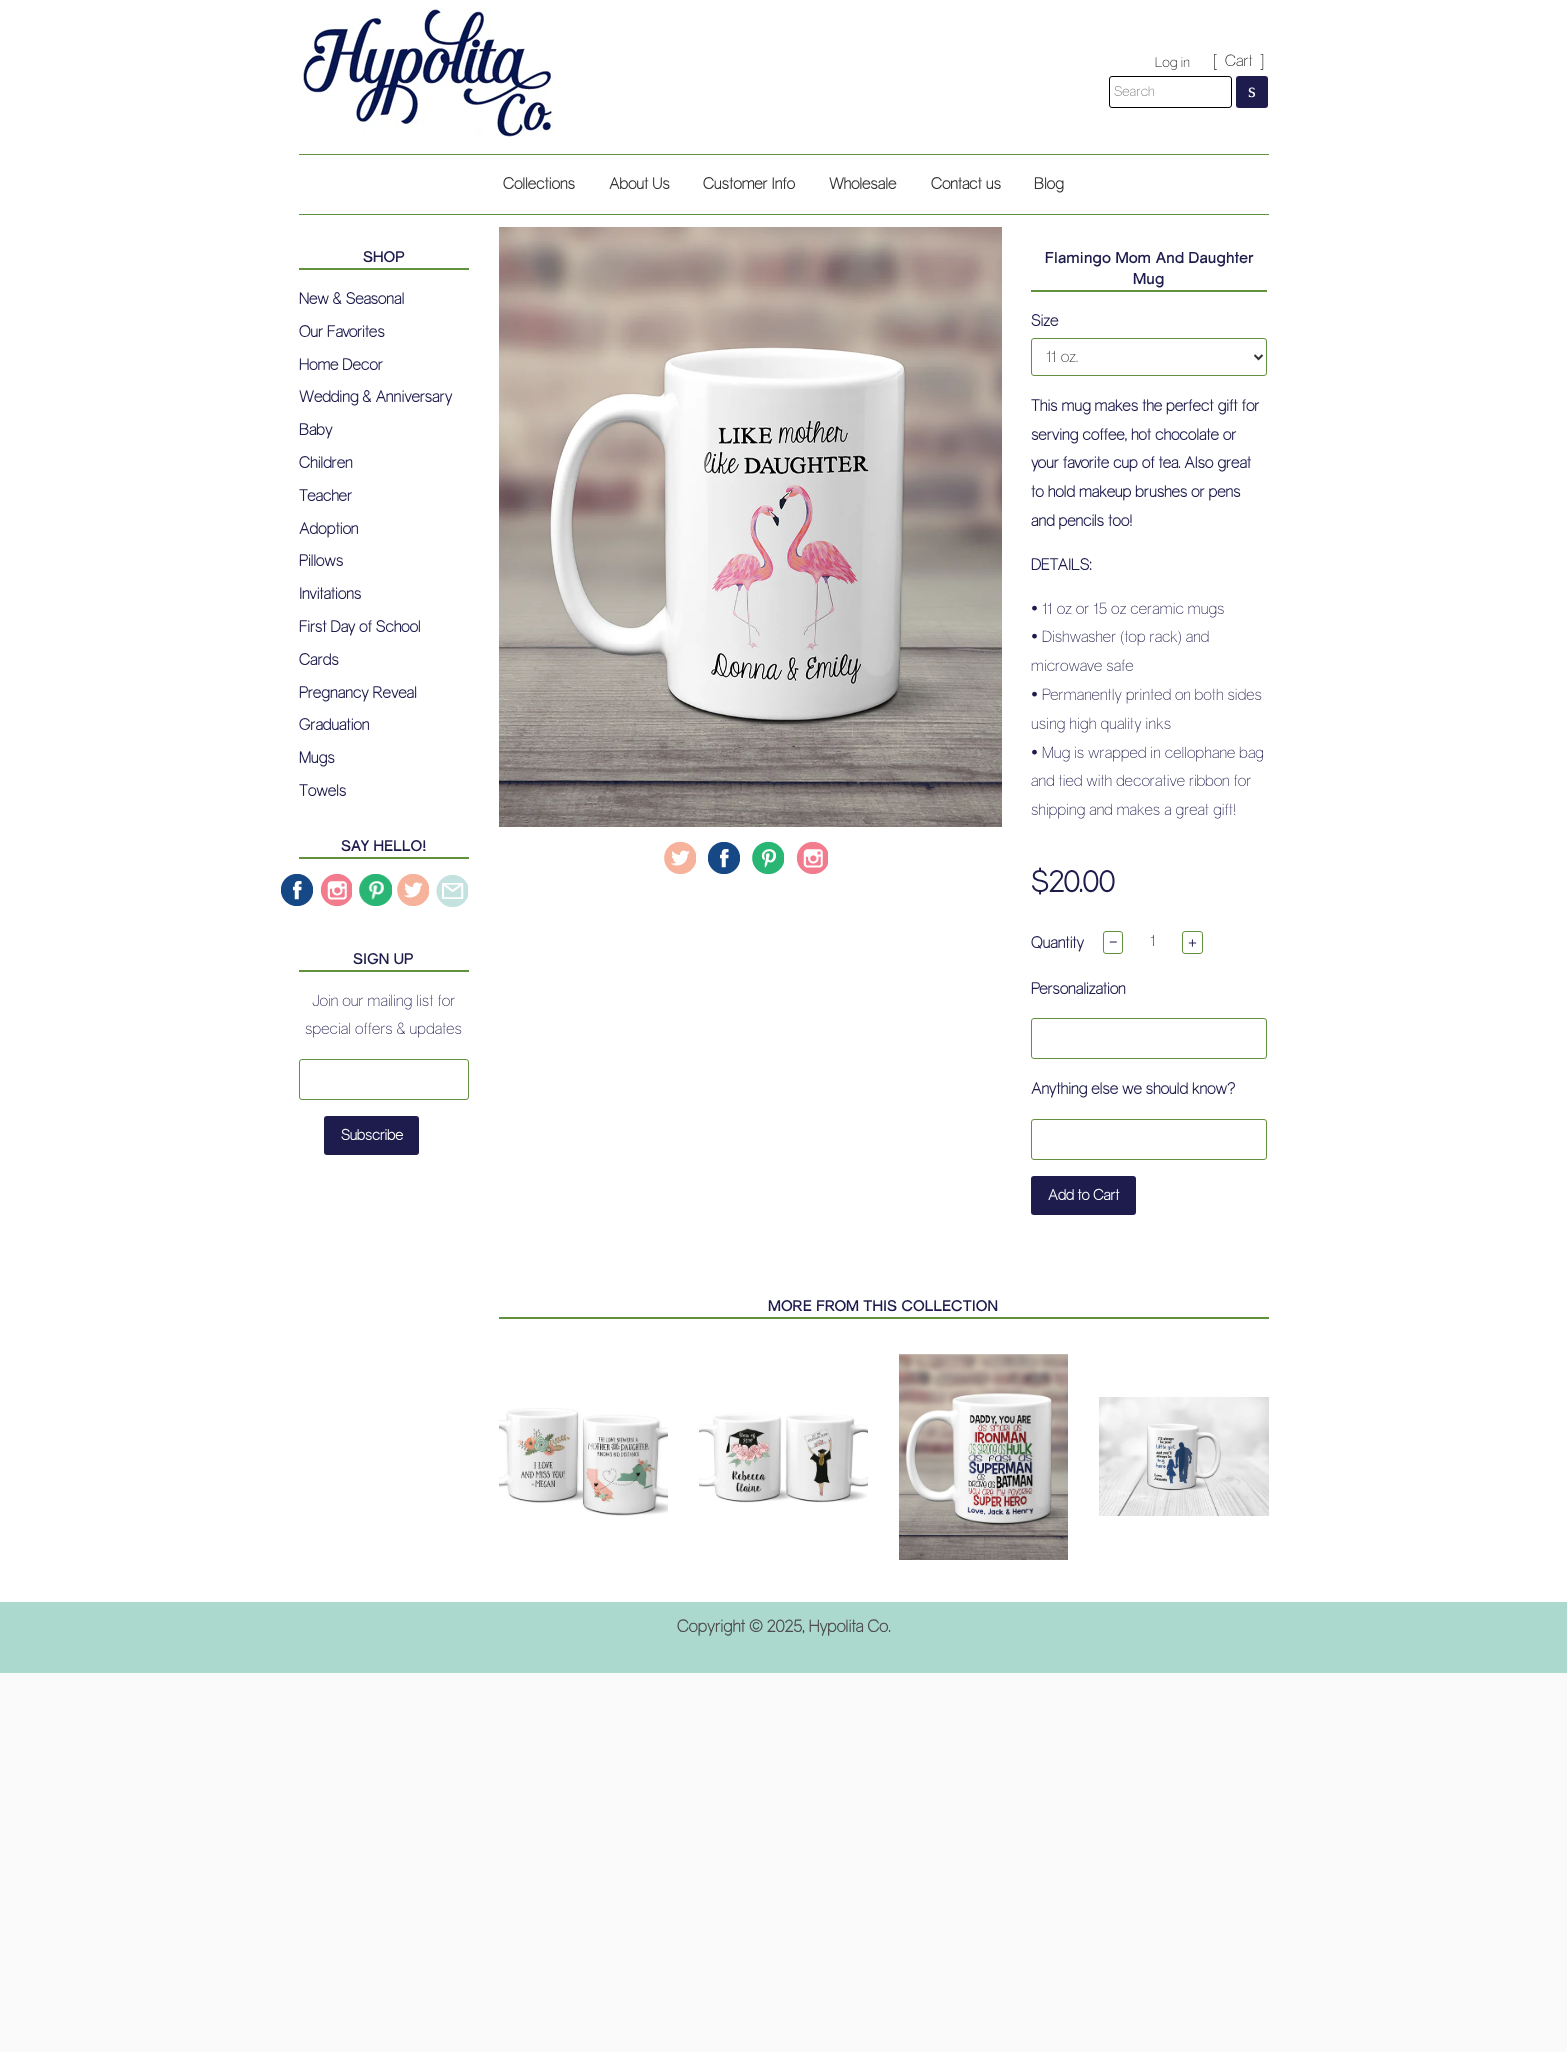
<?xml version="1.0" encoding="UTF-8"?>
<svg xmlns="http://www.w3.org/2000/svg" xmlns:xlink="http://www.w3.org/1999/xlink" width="1567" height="2052">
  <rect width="100%" height="100%" fill="#fafafa" />
  <rect width="1567" height="1602" fill="#ffffff" />
  <image x="303" y="8" width="251" height="130" xlink:href="image1.png" />
  <rect x="1109.5" y="76.5" width="122" height="31" rx="2.5" fill="none" stroke="#000000" />
  <rect x="1236" y="76" width="32" height="32" rx="3" fill="#1d1c4d" />
  <rect x="299" y="154" width="970" height="1" fill="#62913e" />
  <rect x="299" y="214" width="970" height="1" fill="#62913e" />
  <rect x="299" y="268" width="170" height="2" fill="#62913e" />
  <rect x="299" y="857" width="170" height="2" fill="#62913e" />
  <image x="281" y="874" width="32" height="32" xlink:href="image2.png" />
  <image x="320" y="874" width="32" height="32" xlink:href="image3.png" />
  <image x="359" y="874" width="33" height="32" xlink:href="image4.png" />
  <image x="397" y="874" width="32" height="32" xlink:href="image5.png" />
  <image x="436" y="875" width="32" height="32" xlink:href="image6.png" />
  <rect x="299" y="970" width="170" height="2" fill="#62913e" />
  <rect x="299.5" y="1059.5" width="169" height="40" rx="2.5" fill="none" stroke="#62913e" />
  <rect x="324" y="1116" width="95" height="39" rx="3" fill="#1d1c4d" />
  <image x="499" y="227" width="503" height="600" xlink:href="image7.png" />
  <image x="664" y="842" width="32" height="32" xlink:href="image5.png" />
  <image x="708" y="842" width="32" height="32" xlink:href="image2.png" />
  <image x="752" y="842" width="32" height="32" xlink:href="image8.png" />
  <image x="796" y="842" width="32" height="32" xlink:href="image3.png" />
  <rect x="1031" y="290" width="236" height="2" fill="#62913e" />
  <rect x="1031.5" y="338.5" width="235" height="37" rx="2.5" fill="none" stroke="#62913e" />
  <path d="M 1254.5 355 l 4 4 l 4 -4" fill="none" stroke="#333333" stroke-width="2" />
  <rect x="1103.5" y="931.5" width="19" height="22" rx="2.5" fill="none" stroke="#62913e" />
  <rect x="1182.5" y="931.5" width="20" height="22" rx="2.5" fill="none" stroke="#62913e" />
  <rect x="1031.5" y="1018.5" width="235" height="40" rx="2.5" fill="none" stroke="#62913e" />
  <rect x="1031.5" y="1119.5" width="235" height="40" rx="2.5" fill="none" stroke="#62913e" />
  <rect x="1031" y="1176" width="105" height="39" rx="3" fill="#1d1c4d" />
  <rect x="499" y="1317" width="770" height="2" fill="#62913e" />
  <image x="499" y="1408" width="169" height="108" xlink:href="image9.png" />
  <image x="699" y="1413" width="169" height="90" xlink:href="image10.png" />
  <image x="899" y="1354" width="169" height="206" xlink:href="image11.png" />
  <image x="1099" y="1397" width="170" height="119" xlink:href="image12.png" />
  <rect y="1602" width="1567" height="71" fill="#acd9ce" />
  <text x="1155" y="67" style="font-family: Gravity; font-size: 14px; font-weight: 300; fill: #0c0c0c">Log in</text>
  <text x="1213" y="66" style="font-family: Gravity; font-size: 17px; font-weight: 300; fill: #0c0c0c">[</text>
  <text x="1225" y="66" style="font-family: Gravity; font-size: 16px; font-weight: 300; fill: #0c0c0c">Cart</text>
  <text x="1260" y="66" style="font-family: Gravity; font-size: 17px; font-weight: 300; fill: #0c0c0c">]</text>
  <text x="1114" y="96" style="font-family: Gravity; font-size: 14px; font-weight: 300; fill: #757575">Search</text>
  <text x="1248" y="97" style="font-family: Liberation Serif; font-size: 20px; fill: #ffffff">s</text>
  <text x="503" y="189" style="font-family: 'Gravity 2'; font-size: 16px; font-weight: bold; fill: #333333">Collections</text>
  <text x="609" y="189" style="font-family: 'Gravity 2'; font-size: 16px; font-weight: bold; fill: #333333">About Us</text>
  <text x="703" y="189" style="font-family: 'Gravity 2'; font-size: 16px; font-weight: bold; fill: #333333">Customer Info</text>
  <text x="829" y="189" style="font-family: 'Gravity 2'; font-size: 16px; font-weight: bold; fill: #333333">Wholesale</text>
  <text x="931" y="189" style="font-family: 'Gravity 2'; font-size: 16px; font-weight: bold; fill: #333333">Contact us</text>
  <text x="1034" y="189" style="font-family: 'Gravity 2'; font-size: 16px; font-weight: bold; fill: #333333">Blog</text>
  <text x="363" y="262" style="font-family: Gravity; font-size: 15px; font-weight: bold; fill: #1d1c4d">SHOP</text>
  <text x="299" y="304" style="font-family: 'Gravity 2'; font-size: 16px; font-weight: bold; fill: #1d1c4d">New &amp; Seasonal</text>
  <text x="299" y="337" style="font-family: 'Gravity 2'; font-size: 16px; font-weight: bold; fill: #1d1c4d">Our Favorites</text>
  <text x="299" y="370" style="font-family: 'Gravity 2'; font-size: 16px; font-weight: bold; fill: #1d1c4d">Home Decor</text>
  <text x="299" y="402" style="font-family: 'Gravity 2'; font-size: 16px; font-weight: bold; fill: #1d1c4d">Wedding &amp; Anniversary</text>
  <text x="299" y="435" style="font-family: 'Gravity 2'; font-size: 16px; font-weight: bold; fill: #1d1c4d">Baby</text>
  <text x="299" y="468" style="font-family: 'Gravity 2'; font-size: 16px; font-weight: bold; fill: #1d1c4d">Children</text>
  <text x="299" y="501" style="font-family: 'Gravity 2'; font-size: 16px; font-weight: bold; fill: #1d1c4d">Teacher</text>
  <text x="299" y="534" style="font-family: 'Gravity 2'; font-size: 16px; font-weight: bold; fill: #1d1c4d">Adoption</text>
  <text x="299" y="566" style="font-family: 'Gravity 2'; font-size: 16px; font-weight: bold; fill: #1d1c4d">Pillows</text>
  <text x="299" y="599" style="font-family: 'Gravity 2'; font-size: 16px; font-weight: bold; fill: #1d1c4d">Invitations</text>
  <text x="299" y="632" style="font-family: 'Gravity 2'; font-size: 16px; font-weight: bold; fill: #1d1c4d">First Day of School</text>
  <text x="299" y="665" style="font-family: 'Gravity 2'; font-size: 16px; font-weight: bold; fill: #1d1c4d">Cards</text>
  <text x="299" y="698" style="font-family: 'Gravity 2'; font-size: 16px; font-weight: bold; fill: #1d1c4d">Pregnancy Reveal</text>
  <text x="299" y="730" style="font-family: 'Gravity 2'; font-size: 16px; font-weight: bold; fill: #1d1c4d">Graduation</text>
  <text x="299" y="763" style="font-family: 'Gravity 2'; font-size: 16px; font-weight: bold; fill: #1d1c4d">Mugs</text>
  <text x="299" y="796" style="font-family: 'Gravity 2'; font-size: 16px; font-weight: bold; fill: #1d1c4d">Towels</text>
  <text x="341" y="851" style="font-family: Gravity; font-size: 15px; font-weight: bold; fill: #1d1c4d">SAY HELLO!</text>
  <text x="353" y="964" style="font-family: Gravity; font-size: 15px; font-weight: bold; fill: #1d1c4d">SIGN UP</text>
  <text x="312" y="1006" style="font-family: Gravity; font-size: 16px; font-weight: 300; fill: #1d1c4d">Join our mailing list for</text>
  <text x="305" y="1034" style="font-family: Gravity; font-size: 16px; font-weight: 300; fill: #1d1c4d">special offers &amp; updates</text>
  <text x="341" y="1140" style="font-family: 'Gravity 2'; font-size: 15px; font-weight: bold; fill: #ffffff">Subscribe</text>
  <text x="1045" y="263" style="font-family: Gravity; font-size: 15.4px; font-weight: bold; fill: #1d1c4d">Flamingo Mom And Daughter</text>
  <text x="1133" y="284" style="font-family: Gravity; font-size: 15.4px; font-weight: bold; fill: #1d1c4d">Mug</text>
  <text x="1031" y="326" style="font-family: 'Gravity 2'; font-size: 16px; font-weight: bold; fill: #1d1c4d">Size</text>
  <text x="1046" y="362" style="font-family: Gravity; font-size: 16px; font-weight: 300; fill: #333333">11 oz.</text>
  <text x="1031" y="411" style="font-family: 'Gravity 2'; font-size: 16px; font-weight: bold; fill: #1d1c4d">This mug makes the perfect gift for</text>
  <text x="1031" y="440" style="font-family: 'Gravity 2'; font-size: 16px; font-weight: bold; fill: #1d1c4d">serving coffee, hot chocolate or</text>
  <text x="1031" y="468" style="font-family: 'Gravity 2'; font-size: 16px; font-weight: bold; fill: #1d1c4d">your favorite cup of tea. Also great</text>
  <text x="1031" y="497" style="font-family: 'Gravity 2'; font-size: 16px; font-weight: bold; fill: #1d1c4d">to hold makeup brushes or pens</text>
  <text x="1031" y="526" style="font-family: 'Gravity 2'; font-size: 16px; font-weight: bold; fill: #1d1c4d">and pencils too!</text>
  <text x="1031" y="570" style="font-family: 'Gravity 2'; font-size: 16px; font-weight: bold; fill: #1d1c4d">DETAILS:</text>
  <text x="1031" y="614" style="font-family: Gravity; font-size: 16px; font-weight: 300; fill: #1d1c4d">• 11 oz or 15 oz ceramic mugs</text>
  <text x="1031" y="642" style="font-family: Gravity; font-size: 16px; font-weight: 300; fill: #1d1c4d">• Dishwasher (top rack) and</text>
  <text x="1031" y="671" style="font-family: Gravity; font-size: 16px; font-weight: 300; fill: #1d1c4d">microwave safe</text>
  <text x="1031" y="700" style="font-family: Gravity; font-size: 16px; font-weight: 300; fill: #1d1c4d">• Permanently printed on both sides</text>
  <text x="1031" y="729" style="font-family: Gravity; font-size: 16px; font-weight: 300; fill: #1d1c4d">using high quality inks</text>
  <text x="1031" y="758" style="font-family: Gravity; font-size: 16px; font-weight: 300; fill: #1d1c4d">• Mug is wrapped in cellophane bag</text>
  <text x="1031" y="786" style="font-family: Gravity; font-size: 16px; font-weight: 300; fill: #1d1c4d">and tied with decorative ribbon for</text>
  <text x="1031" y="815" style="font-family: Gravity; font-size: 16px; font-weight: 300; fill: #1d1c4d">shipping and makes a great gift!</text>
  <text x="1031" y="892" style="font-family: 'Gravity 2'; font-size: 30px; font-weight: bold; fill: #1d1c4d">$20.00</text>
  <text x="1031" y="948" style="font-family: 'Gravity 2'; font-size: 16px; font-weight: bold; fill: #1d1c4d">Quantity</text>
  <text x="1109" y="947" style="font-family: Liberation Serif; font-size: 15px; font-weight: bold; fill: #1d1c4d">−</text>
  <text x="1150" y="946" style="font-family: Gravity; font-size: 16px; font-weight: 300; fill: #1d1c4d">1</text>
  <text x="1188" y="947" style="font-family: 'Gravity 2'; font-size: 15px; font-weight: bold; fill: #1d1c4d">+</text>
  <text x="1031" y="994" style="font-family: 'Gravity 2'; font-size: 16px; font-weight: bold; fill: #1d1c4d">Personalization</text>
  <text x="1031" y="1094" style="font-family: 'Gravity 2'; font-size: 16px; font-weight: bold; fill: #1d1c4d">Anything else we should know?</text>
  <text x="1048" y="1200" style="font-family: 'Gravity 2'; font-size: 15px; font-weight: bold; fill: #ffffff">Add to Cart</text>
  <text x="768" y="1311" style="font-family: Gravity; font-size: 15px; font-weight: bold; fill: #1d1c4d">MORE FROM THIS COLLECTION</text>
  <text x="677" y="1632" style="font-family: 'Gravity 2'; font-size: 17px; font-weight: bold; fill: #4c4c4c">Copyright © 2025, Hypolita Co.</text>
</svg>
